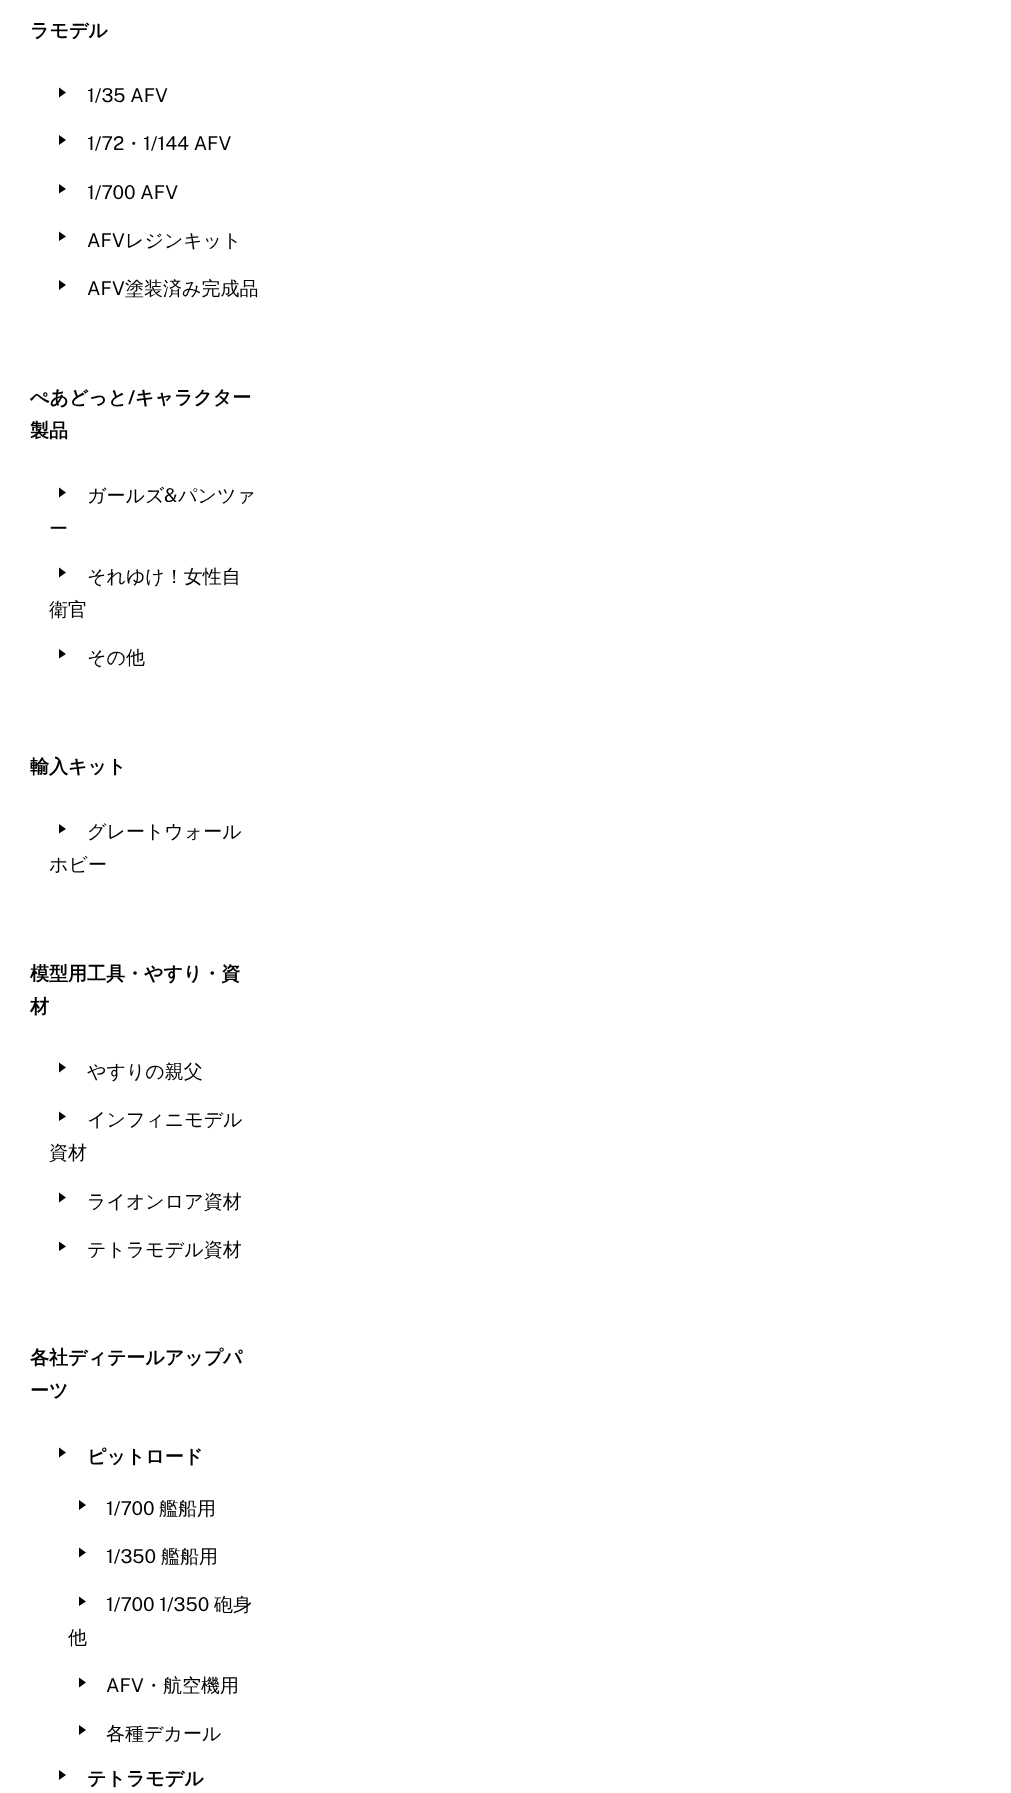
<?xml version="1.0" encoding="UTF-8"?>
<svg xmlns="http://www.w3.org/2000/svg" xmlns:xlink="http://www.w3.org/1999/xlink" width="1011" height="1793">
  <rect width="100%" height="100%" fill="#ffffff" />
  <path d="M 59 87.5 l 7 5 l -7 5 z" fill="#000000" />
  <path d="M 59 135 l 7 5 l -7 5 z" fill="#000000" />
  <path d="M 59 184 l 7 5 l -7 4.5 z" fill="#000000" />
  <path d="M 59 231.5 l 7 5 l -7 4.5 z" fill="#000000" />
  <path d="M 59 280 l 7 5 l -7 5 z" fill="#000000" />
  <path d="M 59 487.5 l 7 5 l -7 5 z" fill="#000000" />
  <path d="M 59 567.5 l 7 5 l -7 5 z" fill="#000000" />
  <path d="M 59 649 l 7 5 l -7 4.5 z" fill="#000000" />
  <path d="M 59 824 l 7 5 l -7 4.5 z" fill="#000000" />
  <path d="M 59 1062.5 l 7 5 l -7 5 z" fill="#000000" />
  <path d="M 59 1111.5 l 7 5 l -7 4.5 z" fill="#000000" />
  <path d="M 59 1192.5 l 7 5 l -7 5 z" fill="#000000" />
  <path d="M 59 1241.5 l 7 5 l -7 4.5 z" fill="#000000" />
  <path d="M 59 1447.5 l 7 5 l -7 5 z" fill="#000000" />
  <path d="M 79 1500 l 7 5 l -7 5 z" fill="#000000" />
  <path d="M 79 1547.5 l 7 5 l -7 5 z" fill="#000000" />
  <path d="M 79 1596.5 l 7 5 l -7 4.5 z" fill="#000000" />
  <path d="M 79 1677.5 l 7 5 l -7 5 z" fill="#000000" />
  <path d="M 79 1725 l 7 5 l -7 5 z" fill="#000000" />
  <path d="M 59 1770 l 7 5 l -7 5 z" fill="#000000" />
  <text x="30" y="37" style="font-family: WenQuanYi Zen Hei; font-size: 19px; font-weight: bold; fill: #000000">ラモデル</text>
  <text x="87" y="102" style="font-family: Public Sans; font-size: 19px; fill: #000000">1/35 AFV</text>
  <text x="87" y="150" style="font-family: Public Sans; font-size: 19px; fill: #000000">1/72</text>
  <text x="124" y="150" style="font-family: WenQuanYi Zen Hei; font-size: 19px; font-weight: 500; fill: #000000">・</text>
  <text x="143" y="150" style="font-family: Public Sans; font-size: 19px; fill: #000000">1/144 AFV</text>
  <text x="87" y="199" style="font-family: Public Sans; font-size: 19px; fill: #000000">1/700 AFV</text>
  <text x="87" y="247" style="font-family: Public Sans; font-size: 19px; fill: #000000">AFV</text>
  <text x="125" y="247" style="font-family: WenQuanYi Zen Hei; font-size: 19px; font-weight: 500; fill: #000000">レジンキット</text>
  <text x="87" y="295" style="font-family: Public Sans; font-size: 19px; fill: #000000">AFV</text>
  <text x="125" y="295" style="font-family: WenQuanYi Zen Hei; font-size: 19px; font-weight: 500; fill: #000000">塗装済み完成品</text>
  <text x="30" y="404" style="font-family: WenQuanYi Zen Hei; font-size: 19px; font-weight: bold; fill: #000000">ぺあどっと</text>
  <text x="128" y="404" style="font-family: Public Sans; font-size: 19px; font-weight: bold; fill: #000000">/</text>
  <text x="135" y="404" style="font-family: WenQuanYi Zen Hei; font-size: 19px; font-weight: bold; fill: #000000">キャラクター</text>
  <text x="30" y="437" style="font-family: WenQuanYi Zen Hei; font-size: 19px; font-weight: bold; fill: #000000">製品</text>
  <text x="87" y="502" style="font-family: WenQuanYi Zen Hei; font-size: 19px; font-weight: 500; fill: #000000">ガールズ</text>
  <text x="164" y="502" style="font-family: Public Sans; font-size: 19px; fill: #000000">&amp;</text>
  <text x="178" y="502" style="font-family: WenQuanYi Zen Hei; font-size: 19px; font-weight: 500; fill: #000000">パンツァ</text>
  <text x="49" y="535" style="font-family: WenQuanYi Zen Hei; font-size: 19px; font-weight: 500; fill: #000000">ー</text>
  <text x="87" y="583" style="font-family: WenQuanYi Zen Hei; font-size: 19px; font-weight: 500; fill: #000000">それゆけ！女性自</text>
  <text x="49" y="616" style="font-family: WenQuanYi Zen Hei; font-size: 19px; font-weight: 500; fill: #000000">衛官</text>
  <text x="87" y="664" style="font-family: WenQuanYi Zen Hei; font-size: 19px; font-weight: 500; fill: #000000">その他</text>
  <text x="30" y="773" style="font-family: WenQuanYi Zen Hei; font-size: 19px; font-weight: bold; fill: #000000">輸入キット</text>
  <text x="87" y="838" style="font-family: WenQuanYi Zen Hei; font-size: 19px; font-weight: 500; fill: #000000">グレートウォール</text>
  <text x="49" y="871" style="font-family: WenQuanYi Zen Hei; font-size: 19px; font-weight: 500; fill: #000000">ホビー</text>
  <text x="30" y="980" style="font-family: WenQuanYi Zen Hei; font-size: 19px; font-weight: bold; fill: #000000">模型用工具・やすり・資</text>
  <text x="30" y="1013" style="font-family: WenQuanYi Zen Hei; font-size: 19px; font-weight: bold; fill: #000000">材</text>
  <text x="87" y="1078" style="font-family: WenQuanYi Zen Hei; font-size: 19px; font-weight: 500; fill: #000000">やすりの親父</text>
  <text x="87" y="1126" style="font-family: WenQuanYi Zen Hei; font-size: 19px; font-weight: 500; fill: #000000">インフィニモデル</text>
  <text x="49" y="1159" style="font-family: WenQuanYi Zen Hei; font-size: 19px; font-weight: 500; fill: #000000">資材</text>
  <text x="87" y="1208" style="font-family: WenQuanYi Zen Hei; font-size: 19px; font-weight: 500; fill: #000000">ライオンロア資材</text>
  <text x="87" y="1256" style="font-family: WenQuanYi Zen Hei; font-size: 19px; font-weight: 500; fill: #000000">テトラモデル資材</text>
  <text x="30" y="1364" style="font-family: WenQuanYi Zen Hei; font-size: 19px; font-weight: bold; fill: #000000">各社ディテールアップパ</text>
  <text x="30" y="1397" style="font-family: WenQuanYi Zen Hei; font-size: 19px; font-weight: bold; fill: #000000">ーツ</text>
  <text x="87" y="1463" style="font-family: WenQuanYi Zen Hei; font-size: 19px; font-weight: bold; fill: #000000">ピットロード</text>
  <text x="106" y="1515" style="font-family: Public Sans; font-size: 19px; fill: #000000">1/700</text>
  <text x="159" y="1515" style="font-family: WenQuanYi Zen Hei; font-size: 19px; font-weight: 500; fill: #000000">艦船用</text>
  <text x="106" y="1563" style="font-family: Public Sans; font-size: 19px; fill: #000000">1/350</text>
  <text x="161" y="1563" style="font-family: WenQuanYi Zen Hei; font-size: 19px; font-weight: 500; fill: #000000">艦船用</text>
  <text x="106" y="1611" style="font-family: Public Sans; font-size: 19px; fill: #000000">1/700 1/350</text>
  <text x="214" y="1611" style="font-family: WenQuanYi Zen Hei; font-size: 19px; font-weight: 500; fill: #000000">砲身</text>
  <text x="68" y="1644" style="font-family: WenQuanYi Zen Hei; font-size: 19px; font-weight: 500; fill: #000000">他</text>
  <text x="106" y="1692" style="font-family: Public Sans; font-size: 19px; fill: #000000">AFV</text>
  <text x="144" y="1692" style="font-family: WenQuanYi Zen Hei; font-size: 19px; font-weight: 500; fill: #000000">・航空機用</text>
  <text x="106" y="1740" style="font-family: WenQuanYi Zen Hei; font-size: 19px; font-weight: 500; fill: #000000">各種デカール</text>
  <text x="87" y="1785" style="font-family: WenQuanYi Zen Hei; font-size: 19px; font-weight: bold; fill: #000000">テトラモデル</text>
</svg>
